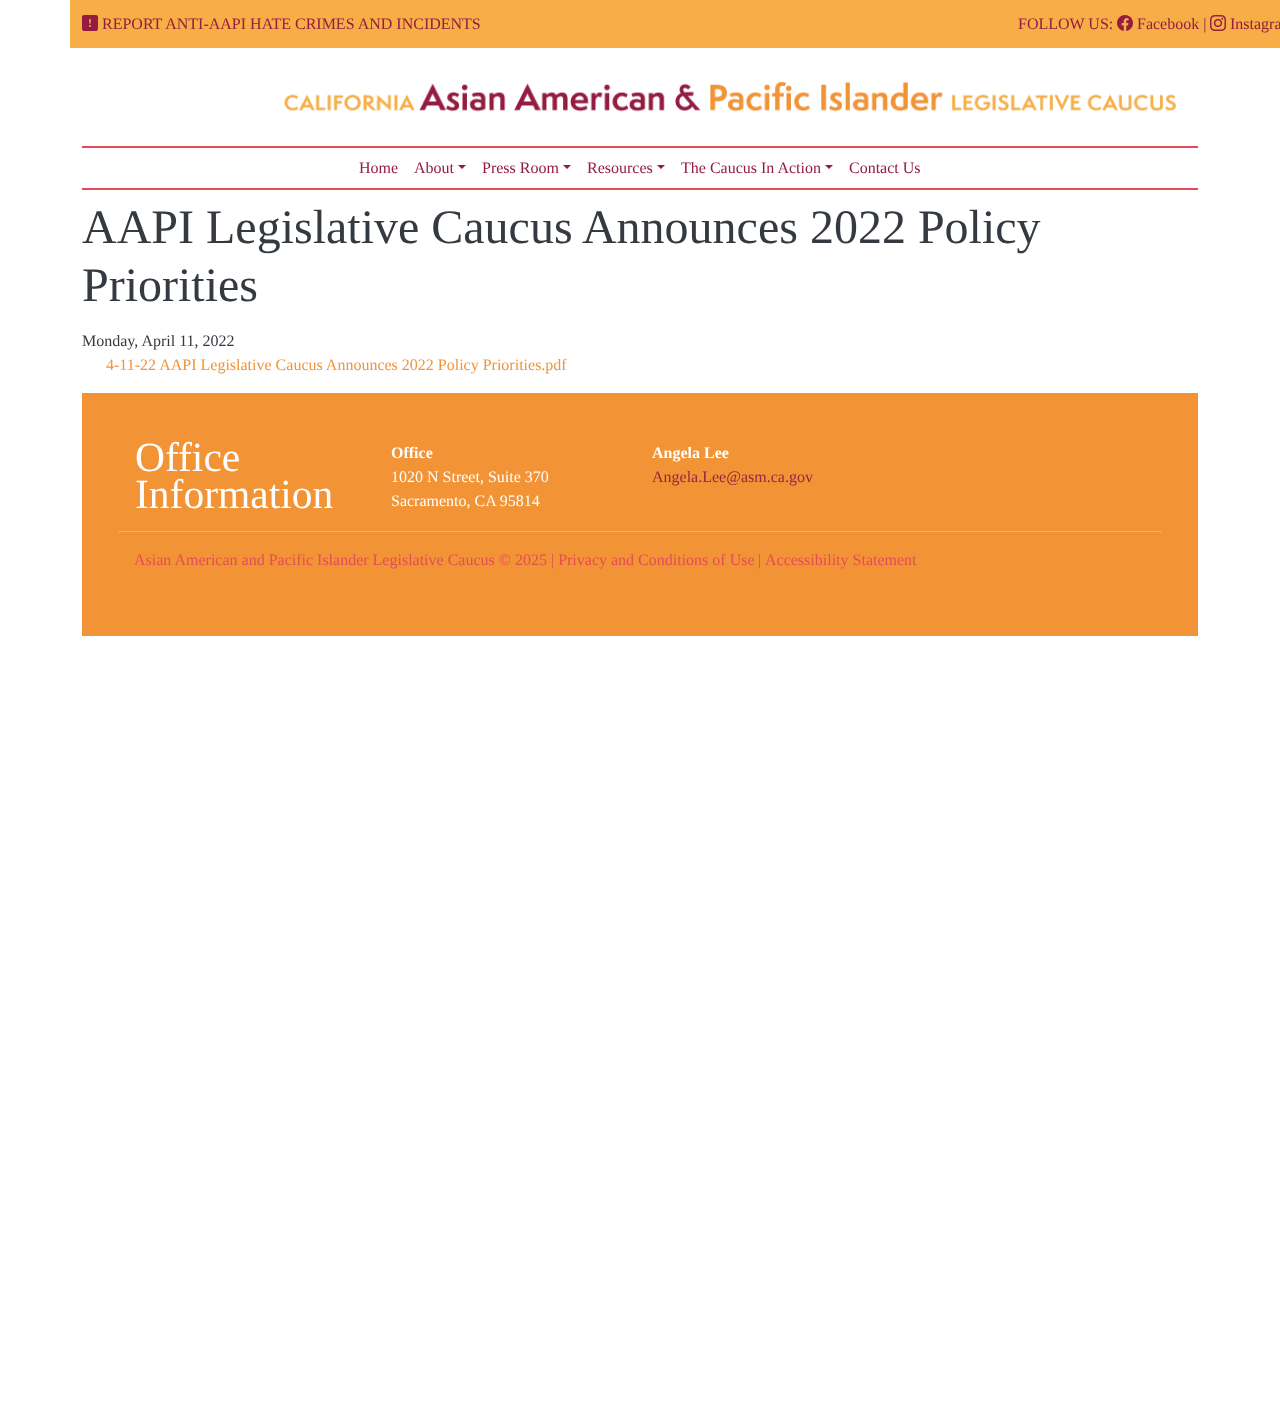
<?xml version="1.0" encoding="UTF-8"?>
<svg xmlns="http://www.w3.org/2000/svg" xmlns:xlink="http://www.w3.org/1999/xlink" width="1280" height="1410">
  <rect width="100%" height="100%" fill="#ffffff" />
  <rect x="70" width="1210" height="48" fill="#f7ae46" />
  <image x="82" y="15" width="16" height="16" xlink:href="image1.png" />
  <image x="1117" y="15" width="16" height="16" xlink:href="image2.png" />
  <image x="1210" y="15" width="16" height="16" xlink:href="image3.png" />
  <image x="284" y="81" width="892" height="31" xlink:href="image4.png" />
  <rect x="82" y="146" width="1116" height="2" fill="#e44c58" />
  <rect x="82" y="188" width="1116" height="2" fill="#e44c58" />
  <path d="M 458 165 h 8 l -4 4 z" fill="#941c41" />
  <path d="M 563 165 h 8 l -4 4 z" fill="#941c41" />
  <path d="M 657 165 h 8 l -4 4 z" fill="#941c41" />
  <path d="M 825 165 h 8 l -4 4 z" fill="#941c41" />
  <rect x="82" y="393" width="1116" height="243" fill="#f29335" />
  <rect x="118" y="531" width="1044" height="1" fill="#f5ae68" />
  <text x="102" y="29" style="font-family: Liberation Serif; font-size: 16px; fill: #941c41">REPORT ANTI-AAPI HATE CRIMES AND INCIDENTS</text>
  <text x="1018" y="29" style="font-family: Liberation Serif; font-size: 16px; fill: #941c41">FOLLOW US:</text>
  <text x="1137" y="29" style="font-family: Liberation Serif; font-size: 16px; fill: #941c41">Facebook |</text>
  <text x="1230" y="29" style="font-family: Liberation Serif; font-size: 16px; fill: #941c41">Instagra</text>
  <text x="359" y="173" style="font-family: Liberation Serif; font-size: 16px; fill: #941c41">Home</text>
  <text x="414" y="173" style="font-family: Liberation Serif; font-size: 16px; fill: #941c41">About</text>
  <text x="482" y="173" style="font-family: Liberation Serif; font-size: 16px; fill: #941c41">Press Room</text>
  <text x="587" y="173" style="font-family: Liberation Serif; font-size: 16px; fill: #941c41">Resources</text>
  <text x="681" y="173" style="font-family: Liberation Serif; font-size: 16px; fill: #941c41">The Caucus In Action</text>
  <text x="849" y="173" style="font-family: Liberation Serif; font-size: 16px; fill: #941c41">Contact Us</text>
  <text x="82" y="243" style="font-family: Liberation Serif; font-size: 48px; fill: #343a40">AAPI Legislative Caucus Announces 2022 Policy</text>
  <text x="82" y="301" style="font-family: Liberation Serif; font-size: 48px; fill: #343a40">Priorities</text>
  <text x="82" y="346" style="font-family: Liberation Serif; font-size: 16px; fill: #343a40">Monday, April 11, 2022</text>
  <text x="106" y="370" style="font-family: Liberation Serif; font-size: 16px; fill: #f29335">4-11-22 AAPI Legislative Caucus Announces 2022 Policy Priorities.pdf</text>
  <text x="135" y="471" style="font-family: Liberation Serif; font-size: 41.5px; fill: #ffffff">Office</text>
  <text x="135" y="508" style="font-family: Liberation Serif; font-size: 41.5px; fill: #ffffff">Information</text>
  <text x="391" y="458" style="font-family: Liberation Serif; font-size: 16px; font-weight: bold; fill: #ffffff">Office</text>
  <text x="391" y="482" style="font-family: Liberation Serif; font-size: 16px; fill: #ffffff">1020 N Street, Suite 370</text>
  <text x="391" y="506" style="font-family: Liberation Serif; font-size: 16px; fill: #ffffff">Sacramento, CA 95814</text>
  <text x="652" y="458" style="font-family: Liberation Serif; font-size: 16px; font-weight: bold; fill: #ffffff">Angela Lee</text>
  <text x="652" y="482" style="font-family: Liberation Serif; font-size: 16px; fill: #9e2245">Angela.Lee@asm.ca.gov</text>
  <text x="134" y="565" style="font-family: Liberation Serif; font-size: 16px; fill: #e44c58">Asian American and Pacific Islander Legislative Caucus © 2025 | Privacy and Conditions of Use</text>
  <text x="758" y="565" style="font-family: Liberation Serif; font-size: 16px; fill: #e44c58">|</text>
  <text x="765" y="565" style="font-family: Liberation Serif; font-size: 16px; fill: #e44c58">Accessibility Statement</text>
</svg>
